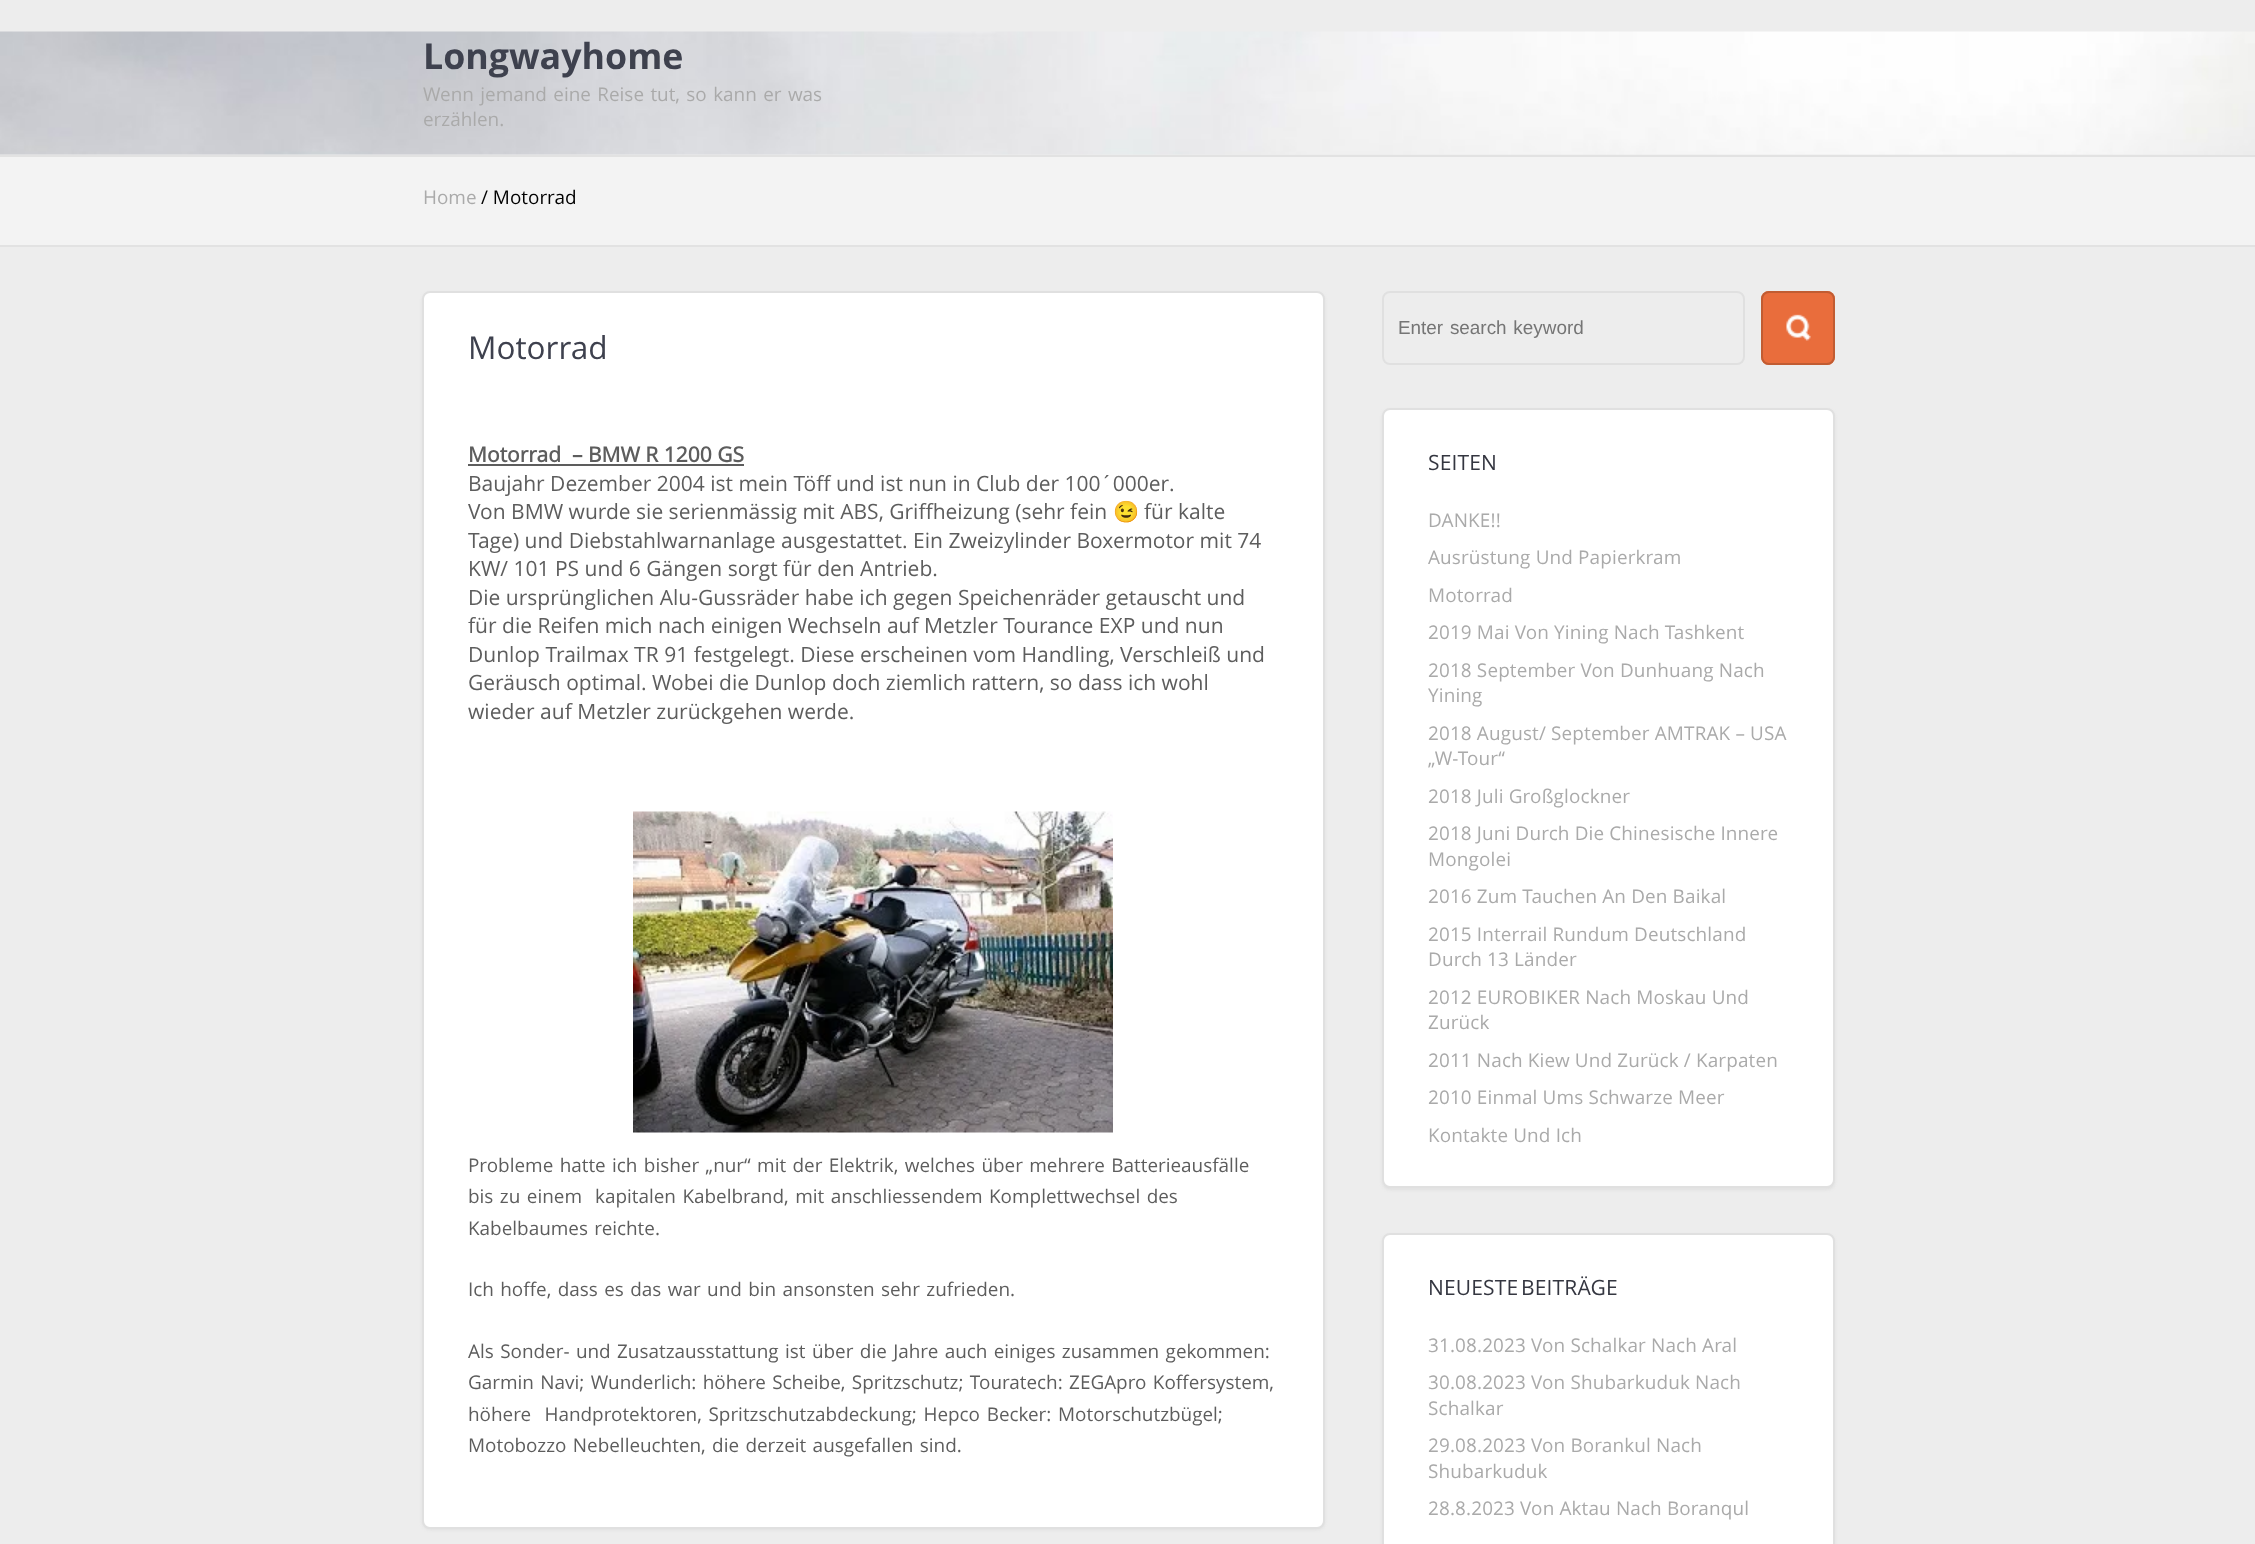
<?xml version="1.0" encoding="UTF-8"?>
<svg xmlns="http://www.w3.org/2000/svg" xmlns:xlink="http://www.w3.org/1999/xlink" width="2255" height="1544">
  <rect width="100%" height="100%" fill="#ededed" />
  <image x="0" y="31" width="2255" height="124" xlink:href="image1.png" />
  <rect y="157" width="2255" height="88" fill="#f3f3f3" />
  <rect y="155" width="2255" height="2" fill="#e2e2e2" />
  <rect y="245" width="2255" height="2" fill="#e2e2e2" />
  <rect x="422" y="293" width="903" height="1237" rx="8" fill="#e0e0e0" filter="blur(1.5px)" />
  <rect x="423" y="292" width="901" height="1236" rx="7" fill="#ffffff" stroke="#e0e0e0" stroke-width="2" />
  <rect x="468" y="464" width="276" height="2" fill="#5d5d5d" />
  <image x="633" y="811" width="480" height="322" xlink:href="image2.png" />
  <rect x="1383" y="292" width="361" height="72" rx="7" fill="none" stroke="#e0e0e0" stroke-width="2" />
  <rect x="1761" y="291" width="74" height="74" rx="8" fill="#e96d3c" />
  <image x="1786" y="314" width="25" height="27" xlink:href="image3.png" />
  <rect x="1762" y="292" width="72" height="72" rx="7" fill="none" stroke="#c15c32" stroke-width="2" />
  <rect x="1382" y="410" width="453" height="780" rx="8" fill="#e0e0e0" filter="blur(1.5px)" />
  <rect x="1383" y="409" width="451" height="778" rx="7" fill="#ffffff" stroke="#e0e0e0" stroke-width="2" />
  <rect x="1382" y="1235" width="453" height="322" rx="8" fill="#e0e0e0" filter="blur(1.5px)" />
  <rect x="1383" y="1234" width="451" height="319" rx="7" fill="#ffffff" stroke="#e0e0e0" stroke-width="2" />
  <text x="423" y="69" style="font-family: Open Sans; font-size: 35.75px; font-weight: bold; fill: #3e414e">Longwayhome</text>
  <text x="423" y="101" word-spacing="1.5" style="font-family: Open Sans; font-size: 18.9px; fill: #aaaaaa">Wenn jemand eine Reise tut, so kann er was</text>
  <text x="423" y="126" style="font-family: Open Sans; font-size: 18.9px; fill: #aaaaaa">erzählen.</text>
  <text x="423" y="204" style="font-family: Open Sans; font-size: 18.9px; fill: #aaaaaa">Home</text>
  <text x="481" y="204" style="font-family: Open Sans; font-size: 18.9px; fill: #000000">/ Motorrad</text>
  <text x="468" y="359" style="font-family: Open Sans; font-size: 31.5px; fill: #3e414e">Motorrad</text>
  <text x="468" y="462" style="font-family: 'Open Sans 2'; font-size: 21px; font-weight: bold; fill: #5d5d5d" xml:space="preserve">Motorrad  – BMW R 1200 GS</text>
  <text x="468" y="491" style="font-family: Open Sans; font-size: 21px; fill: #5d5d5d">Baujahr Dezember 2004 ist mein Töff und ist nun in Club der 100´000er.</text>
  <text x="468" y="519" style="font-family: Open Sans; font-size: 21px; fill: #5d5d5d">Von BMW wurde sie serienmässig mit ABS, Griffheizung (sehr fein</text>
  <text x="1113" y="519" style="font-family: Noto Color Emoji; font-size: 21px; fill: #5d5d5d">😉</text>
  <text x="1144" y="519" style="font-family: Open Sans; font-size: 21px; fill: #5d5d5d">für kalte</text>
  <text x="468" y="548" style="font-family: Open Sans; font-size: 21px; fill: #5d5d5d">Tage) und Diebstahlwarnanlage ausgestattet. Ein Zweizylinder Boxermotor mit 74</text>
  <text x="468" y="576" style="font-family: Open Sans; font-size: 21px; fill: #5d5d5d">KW/ 101 PS und 6 Gängen sorgt für den Antrieb.</text>
  <text x="468" y="605" style="font-family: Open Sans; font-size: 21px; fill: #5d5d5d">Die ursprünglichen Alu-Gussräder habe ich gegen Speichenräder getauscht und</text>
  <text x="468" y="633" style="font-family: Open Sans; font-size: 21px; fill: #5d5d5d">für die Reifen mich nach einigen Wechseln auf Metzler Tourance EXP und nun</text>
  <text x="468" y="662" style="font-family: Open Sans; font-size: 21px; fill: #5d5d5d">Dunlop Trailmax TR 91 festgelegt. Diese erscheinen vom Handling, Verschleiß und</text>
  <text x="468" y="690" style="font-family: Open Sans; font-size: 21px; fill: #5d5d5d">Geräusch optimal. Wobei die Dunlop doch ziemlich rattern, so dass ich wohl</text>
  <text x="468" y="719" style="font-family: Open Sans; font-size: 21px; fill: #5d5d5d">wieder auf Metzler zurückgehen werde.</text>
  <text x="468" y="1172" word-spacing="1.5" style="font-family: Open Sans; font-size: 18.9px; fill: #5d5d5d">Probleme hatte ich bisher „nur“ mit der Elektrik, welches über mehrere Batterieausfälle</text>
  <text x="468" y="1203" word-spacing="1.6" style="font-family: Open Sans; font-size: 18.9px; fill: #5d5d5d" xml:space="preserve">bis zu einem  kapitalen Kabelbrand, mit anschliessendem Komplettwechsel des</text>
  <text x="468" y="1235" word-spacing="1.5" style="font-family: Open Sans; font-size: 18.9px; fill: #5d5d5d">Kabelbaumes reichte.</text>
  <text x="468" y="1296" word-spacing="1.5" style="font-family: Open Sans; font-size: 18.9px; fill: #5d5d5d">Ich hoffe, dass es das war und bin ansonsten sehr zufrieden.</text>
  <text x="468" y="1358" word-spacing="1.5" style="font-family: Open Sans; font-size: 18.9px; fill: #5d5d5d">Als Sonder- und Zusatzausstattung ist über die Jahre auch einiges zusammen gekommen:</text>
  <text x="468" y="1389" word-spacing="1.5" style="font-family: Open Sans; font-size: 18.9px; fill: #5d5d5d">Garmin Navi; Wunderlich: höhere Scheibe, Spritzschutz; Touratech: ZEGApro Koffersystem,</text>
  <text x="468" y="1421" word-spacing="1.75" style="font-family: Open Sans; font-size: 18.9px; fill: #5d5d5d" xml:space="preserve">höhere  Handprotektoren, Spritzschutzabdeckung; Hepco Becker: Motorschutzbügel;</text>
  <text x="468" y="1452" word-spacing="1.5" style="font-family: Open Sans; font-size: 18.9px; fill: #5d5d5d">Motobozzo Nebelleuchten, die derzeit ausgefallen sind.</text>
  <text x="1398" y="334" word-spacing="1.5" style="font-family: Liberation Sans; font-size: 18.9px; fill: #757575">Enter search keyword</text>
  <text x="1428" y="470" style="font-family: Open Sans; font-size: 21px; letter-spacing: 0.15px; fill: #343640">SEITEN</text>
  <text x="1428" y="527" style="font-family: Open Sans; font-size: 18.9px; letter-spacing: 0.15px; fill: #aaaaaa">DANKE!!</text>
  <text x="1428" y="564" style="font-family: Open Sans; font-size: 18.9px; letter-spacing: 0.15px; fill: #aaaaaa">Ausrüstung Und Papierkram</text>
  <text x="1428" y="602" style="font-family: Open Sans; font-size: 18.9px; letter-spacing: 0.15px; fill: #aaaaaa">Motorrad</text>
  <text x="1428" y="639" style="font-family: Open Sans; font-size: 18.9px; letter-spacing: 0.15px; fill: #aaaaaa">2019 Mai Von Yining Nach Tashkent</text>
  <text x="1428" y="677" style="font-family: Open Sans; font-size: 18.9px; letter-spacing: 0.15px; fill: #aaaaaa">2018 September Von Dunhuang Nach</text>
  <text x="1428" y="702" style="font-family: Open Sans; font-size: 18.9px; letter-spacing: 0.15px; fill: #aaaaaa">Yining</text>
  <text x="1428" y="740" style="font-family: Open Sans; font-size: 18.9px; letter-spacing: 0.15px; fill: #aaaaaa">2018 August/ September AMTRAK – USA</text>
  <text x="1428" y="765" style="font-family: Open Sans; font-size: 18.9px; letter-spacing: 0.15px; fill: #aaaaaa">„W-Tour“</text>
  <text x="1428" y="803" style="font-family: Open Sans; font-size: 18.9px; letter-spacing: 0.15px; fill: #aaaaaa">2018 Juli Großglockner</text>
  <text x="1428" y="840" style="font-family: Open Sans; font-size: 18.9px; letter-spacing: 0.15px; fill: #aaaaaa">2018 Juni Durch Die Chinesische Innere</text>
  <text x="1428" y="866" style="font-family: Open Sans; font-size: 18.9px; letter-spacing: 0.15px; fill: #aaaaaa">Mongolei</text>
  <text x="1428" y="903" style="font-family: Open Sans; font-size: 18.9px; letter-spacing: 0.15px; fill: #aaaaaa">2016 Zum Tauchen An Den Baikal</text>
  <text x="1428" y="941" style="font-family: Open Sans; font-size: 18.9px; letter-spacing: 0.15px; fill: #aaaaaa">2015 Interrail Rundum Deutschland</text>
  <text x="1428" y="966" style="font-family: Open Sans; font-size: 18.9px; letter-spacing: 0.15px; fill: #aaaaaa">Durch 13 Länder</text>
  <text x="1428" y="1004" style="font-family: Open Sans; font-size: 18.9px; letter-spacing: 0.15px; fill: #aaaaaa">2012 EUROBIKER Nach Moskau Und</text>
  <text x="1428" y="1029" style="font-family: Open Sans; font-size: 18.9px; letter-spacing: 0.15px; fill: #aaaaaa">Zurück</text>
  <text x="1428" y="1067" style="font-family: Open Sans; font-size: 18.9px; letter-spacing: 0.15px; fill: #aaaaaa">2011 Nach Kiew Und Zurück / Karpaten</text>
  <text x="1428" y="1104" style="font-family: Open Sans; font-size: 18.9px; letter-spacing: 0.15px; fill: #aaaaaa">2010 Einmal Ums Schwarze Meer</text>
  <text x="1428" y="1142" style="font-family: Open Sans; font-size: 18.9px; letter-spacing: 0.15px; fill: #aaaaaa">Kontakte Und Ich</text>
  <text x="1428" y="1295" word-spacing="-3" style="font-family: Open Sans; font-size: 21px; letter-spacing: 0.15px; fill: #343640">NEUESTE BEITRÄGE</text>
  <text x="1428" y="1352" style="font-family: Open Sans; font-size: 18.9px; letter-spacing: 0.15px; fill: #aaaaaa">31.08.2023 Von Schalkar Nach Aral</text>
  <text x="1428" y="1389" style="font-family: Open Sans; font-size: 18.9px; letter-spacing: 0.15px; fill: #aaaaaa">30.08.2023 Von Shubarkuduk Nach</text>
  <text x="1428" y="1415" style="font-family: Open Sans; font-size: 18.9px; letter-spacing: 0.15px; fill: #aaaaaa">Schalkar</text>
  <text x="1428" y="1452" style="font-family: Open Sans; font-size: 18.9px; letter-spacing: 0.15px; fill: #aaaaaa">29.08.2023 Von Borankul Nach</text>
  <text x="1428" y="1478" style="font-family: Open Sans; font-size: 18.9px; letter-spacing: 0.15px; fill: #aaaaaa">Shubarkuduk</text>
  <text x="1428" y="1515" style="font-family: Open Sans; font-size: 18.9px; letter-spacing: 0.15px; fill: #aaaaaa">28.8.2023 Von Aktau Nach Boranqul</text>
</svg>
